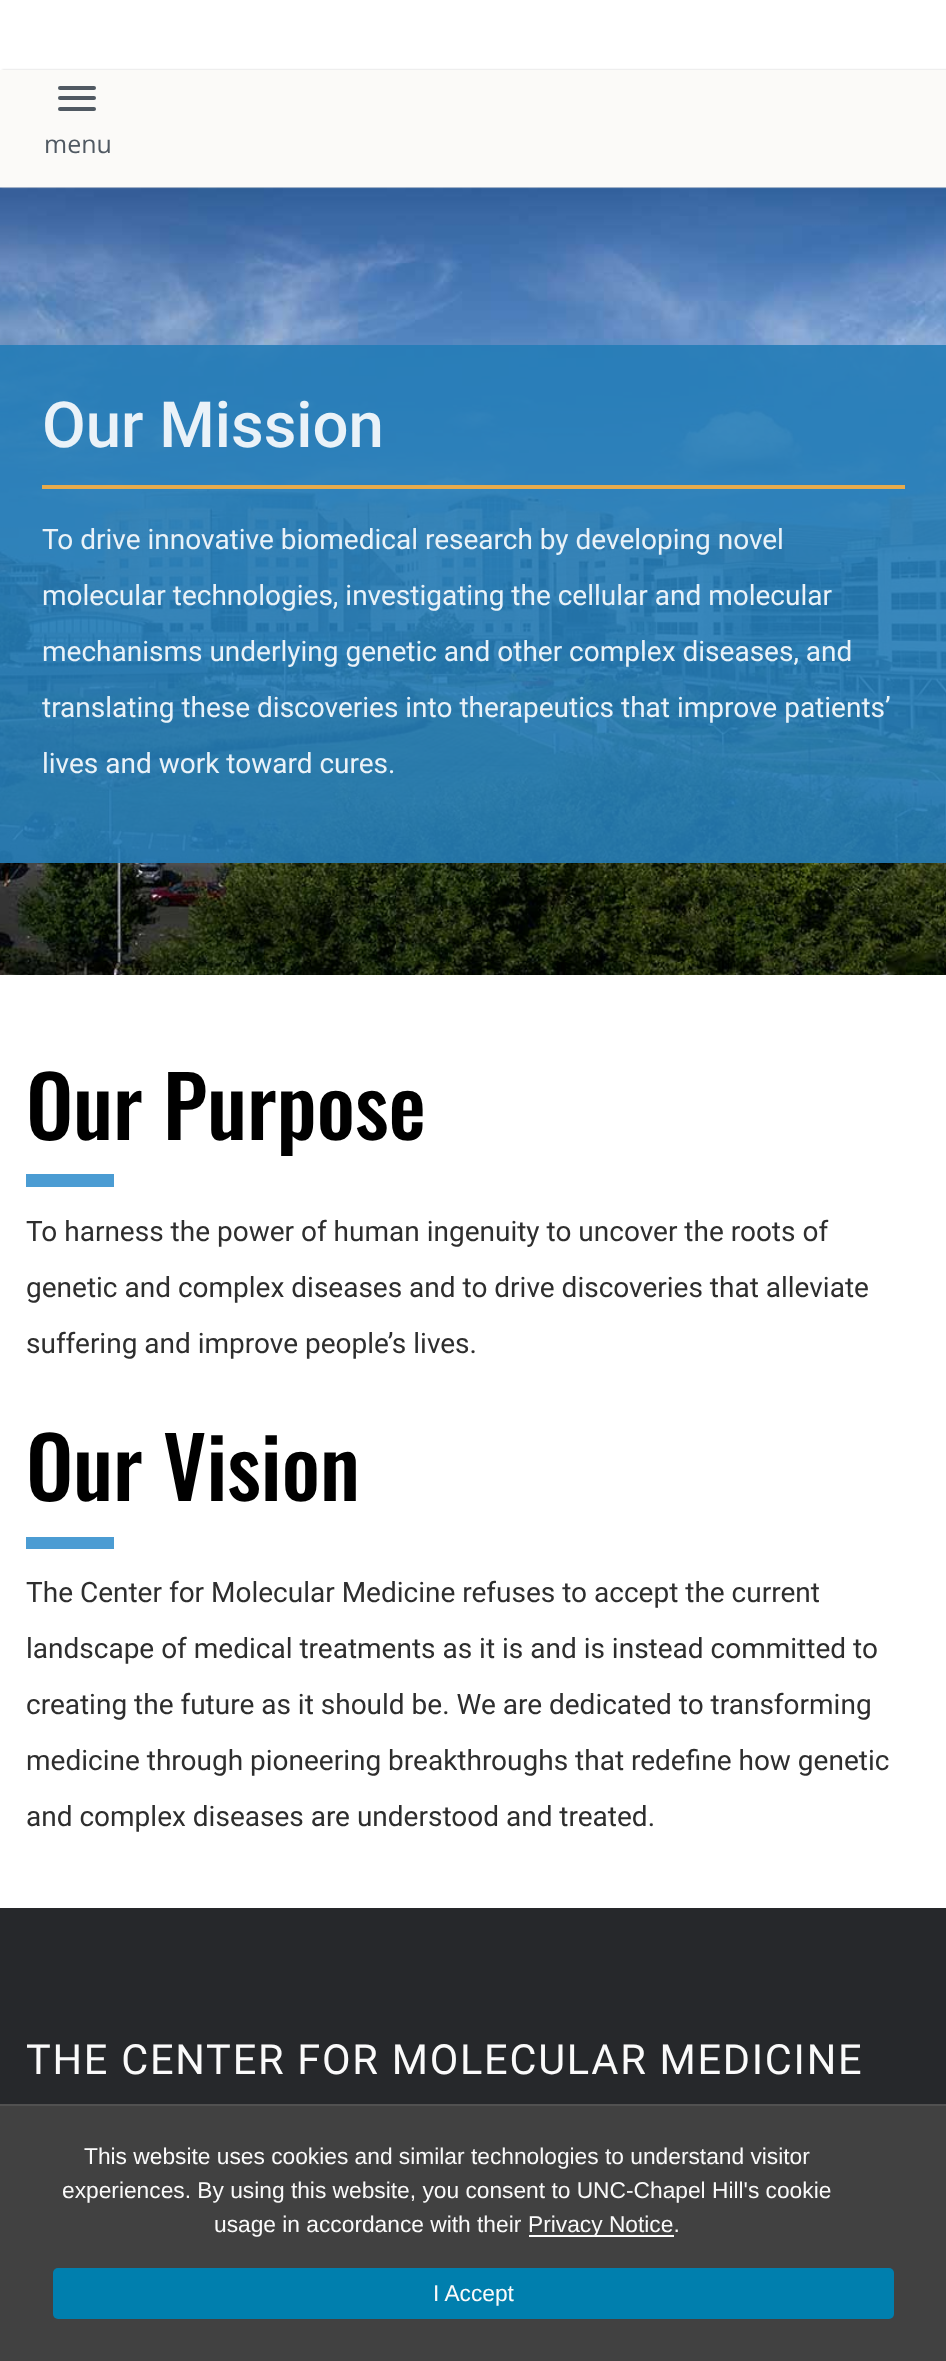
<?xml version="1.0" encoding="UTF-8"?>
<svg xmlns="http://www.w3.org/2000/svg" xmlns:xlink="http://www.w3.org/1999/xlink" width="946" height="2361">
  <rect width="100%" height="100%" fill="#ffffff" />
  <image x="0" y="187" width="946" height="788" xlink:href="image1.png" />
  <rect x="2" y="70" width="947" height="117" fill="#bdbdbd" fill-opacity="0.75" filter="blur(1px)" />
  <rect y="70" width="946" height="117" fill="#fbfaf8" />
  <rect x="58" y="86" width="38" height="4" rx="2" fill="#505962" />
  <rect x="58" y="96" width="38" height="4" rx="2" fill="#505962" />
  <rect x="58" y="107" width="38" height="4" rx="2" fill="#505962" />
  <rect y="345" width="946" height="518" fill="#257cb7" fill-opacity="0.9" />
  <rect x="42" y="485" width="863" height="4" fill="#fbaf41" fill-opacity="0.9" />
  <rect x="26" y="1174" width="88" height="13" fill="#4b9cd3" />
  <rect x="26" y="1537" width="88" height="12" fill="#4b9cd3" />
  <rect y="1908" width="946" height="196" fill="#26282b" />
  <rect y="2106" width="946" height="255" fill="#414141" />
  <rect y="2104" width="946" height="2" fill="#515151" />
  <rect x="529" y="2235" width="145" height="2" fill="#ffffff" />
  <rect x="53" y="2268" width="841" height="51" rx="5" fill="#007fae" />
  <text x="44" y="153" style="font-family: Open Sans; font-size: 25px; fill: #505962">menu</text>
  <text x="42" y="447" style="font-family: Roboto; font-size: 63.5px; font-weight: 500; fill: #eaf2f8">Our Mission</text>
  <text x="42" y="549" style="font-family: Roboto; font-size: 28px; fill: #eaf2f8">To drive innovative biomedical research by developing novel</text>
  <text x="42" y="605" style="font-family: Roboto; font-size: 28px; fill: #eaf2f8">molecular technologies, investigating the cellular and molecular</text>
  <text x="42" y="661" style="font-family: Roboto; font-size: 28px; fill: #eaf2f8">mechanisms underlying genetic and other complex diseases, and</text>
  <text x="42" y="717" style="font-family: Roboto; font-size: 28px; fill: #eaf2f8">translating these discoveries into therapeutics that improve patients’</text>
  <text x="42" y="773" style="font-family: Roboto; font-size: 28px; fill: #eaf2f8">lives and work toward cures.</text>
  <text x="26" y="1140" style="font-family: Oswald; font-size: 84px; font-weight: 500; fill: #000000">Our Purpose</text>
  <text x="26" y="1241" style="font-family: Roboto; font-size: 28px; fill: #2e2e2e">To harness the power of human ingenuity to uncover the roots of</text>
  <text x="26" y="1297" style="font-family: Roboto; font-size: 28px; fill: #2e2e2e">genetic and complex diseases and to drive discoveries that alleviate</text>
  <text x="26" y="1353" style="font-family: Roboto; font-size: 28px; fill: #2e2e2e">suffering and improve people’s lives.</text>
  <text x="26" y="1501" style="font-family: Oswald; font-size: 84px; font-weight: 500; fill: #000000">Our Vision</text>
  <text x="26" y="1602" style="font-family: Roboto; font-size: 28px; fill: #2e2e2e">The Center for Molecular Medicine refuses to accept the current</text>
  <text x="26" y="1658" style="font-family: Roboto; font-size: 28px; fill: #2e2e2e">landscape of medical treatments as it is and is instead committed to</text>
  <text x="26" y="1714" style="font-family: Roboto; font-size: 28px; fill: #2e2e2e">creating the future as it should be. We are dedicated to transforming</text>
  <text x="26" y="1770" style="font-family: Roboto; font-size: 28px; fill: #2e2e2e">medicine through pioneering breakthroughs that redefine how genetic</text>
  <text x="26" y="1826" style="font-family: Roboto; font-size: 28px; fill: #2e2e2e">and complex diseases are understood and treated.</text>
  <text x="26" y="2074" style="font-family: Roboto; font-size: 41.5px; letter-spacing: 1.75px; fill: #fafafa">THE CENTER FOR MOLECULAR MEDICINE</text>
  <text x="84" y="2164" style="font-family: Liberation Sans; font-size: 22.75px; fill: #fafafa">This website uses cookies and similar technologies to understand visitor</text>
  <text x="62" y="2198" style="font-family: Liberation Sans; font-size: 22.75px; fill: #fafafa">experiences. By using this website, you consent to UNC-Chapel Hill's cookie</text>
  <text x="214" y="2232" style="font-family: Liberation Sans; font-size: 22.75px; fill: #fafafa">usage in accordance with their</text>
  <text x="528" y="2232" style="font-family: Liberation Sans; font-size: 22.75px; fill: #fafafa">Privacy Notice.</text>
  <text x="433" y="2301" style="font-family: Liberation Sans; font-size: 22.75px; fill: #fafafa">I Accept</text>
</svg>
